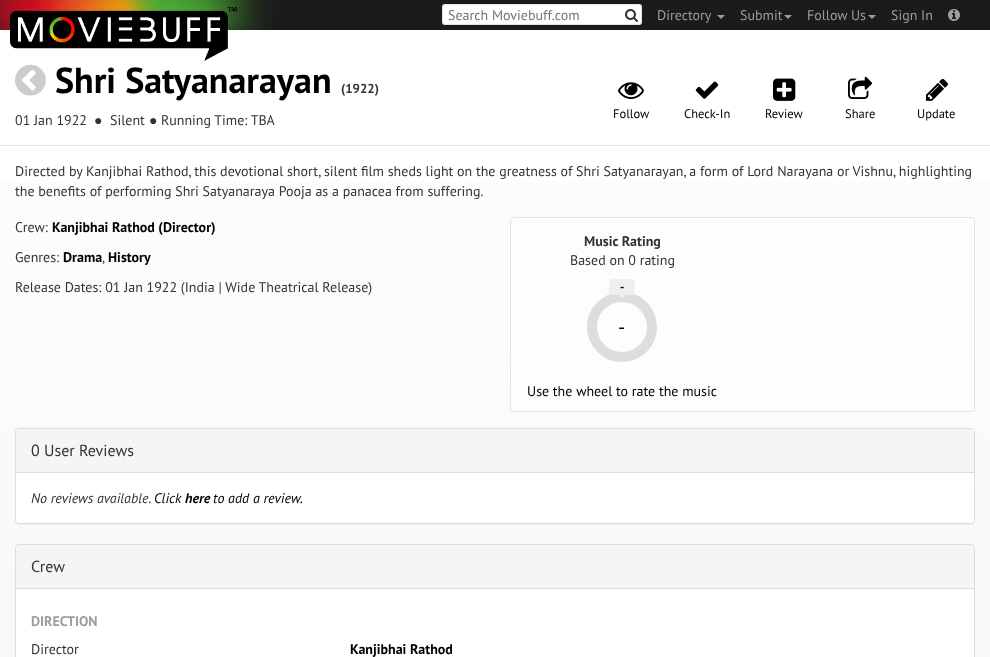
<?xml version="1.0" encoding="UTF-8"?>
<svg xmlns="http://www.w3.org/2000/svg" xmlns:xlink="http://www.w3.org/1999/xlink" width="990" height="657">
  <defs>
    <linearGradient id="g1" gradientUnits="userSpaceOnUse" x1="495" y1="0" x2="495" y2="657"><stop offset="0" stop-color="#ffffff" /><stop offset="0.33" stop-color="#fcfcfc" /><stop offset="0.67" stop-color="#fafafa" /><stop offset="1" stop-color="#f8f8f8" /></linearGradient>
  </defs>
  <rect width="100%" height="100%" fill="#ffffff" />
  <rect y="181" width="990" height="476" fill="url(#g1)" />
  <rect width="990" height="30" fill="#1b1b1b" />
  <image x="0" y="0" width="273" height="30" xlink:href="image1.png" />
  <image x="10" y="7" width="227" height="54" xlink:href="image2.png" />
  <rect x="442" y="4" width="200" height="21" rx="3" fill="#ffffff" />
  <rect x="442.5" y="4.5" width="199" height="20" rx="2.5" fill="none" stroke="#000000" stroke-opacity="0.1" />
  <image x="625" y="9" width="13" height="13" xlink:href="image3.png" />
  <path d="M 717 15 h 8 l -4 4 z" fill="#9d9d9d" />
  <path d="M 784 15 h 8 l -4 4 z" fill="#9d9d9d" />
  <path d="M 868 15 h 8 l -4 4 z" fill="#9d9d9d" />
  <image x="948" y="9" width="12" height="12" xlink:href="image4.png" />
  <image x="15" y="64" width="31" height="32" xlink:href="image5.png" />
  <image x="618" y="82" width="26" height="17" xlink:href="image6.png" />
  <image x="695" y="81" width="24" height="18" xlink:href="image7.png" />
  <image x="773" y="78" width="23" height="23" xlink:href="image8.png" />
  <image x="848" y="76" width="25" height="23" xlink:href="image9.png" />
  <image x="926" y="78" width="22" height="23" xlink:href="image10.png" />
  <rect y="145" width="990" height="1" fill="#e9e9e9" />
  <rect x="510.5" y="217.5" width="464" height="194" rx="3.5" fill="#fdfdfd" stroke="#e4e4e4" />
  <path d="M 592 327.5 c -0.5 -16.5 13 -30 29.5 -30.5 c 16.5 -0.5 30 13 30.5 29.5 c 0.5 16.5 -13 30 -29.5 30.5 c -16.5 0.5 -30 -13 -30.5 -29.5 z" fill="none" stroke="#dddddd" stroke-width="10" />
  <path d="M 622 290.5 l 4 4 l -4 4 l -4 -4 z" fill="#efefef" />
  <rect x="609" y="279" width="26" height="16" rx="4" fill="#efefef" />
  <rect x="15" y="429" width="960" height="96" rx="4" fill="#000000" fill-opacity="0.05" filter="blur(0.5px)" />
  <rect x="15.5" y="428.5" width="959" height="95" rx="3.5" fill="#ffffff" stroke="#dddddd" />
  <path d="M 19 429 h 952 c 1.5 0 3 1.5 3 3 v 41 h -958 v -41 c 0 -1.5 1.5 -3 3 -3 z" fill="#f5f5f5" />
  <rect x="16" y="472" width="958" height="1" fill="#dddddd" />
  <rect x="15.5" y="544.5" width="959" height="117" rx="3.5" fill="#ffffff" stroke="#dddddd" />
  <path d="M 19 545 h 952 c 1.5 0 3 1.5 3 3 v 41 h -958 v -41 c 0 -1.5 1.5 -3 3 -3 z" fill="#f5f5f5" />
  <rect x="16" y="588" width="958" height="1" fill="#dddddd" />
  <text x="448" y="20" style="font-family: PT Sans; font-size: 14px; fill: #757575">Search Moviebuff.com</text>
  <text x="657" y="20" style="font-family: PT Sans; font-size: 14px; fill: #9d9d9d">Directory</text>
  <text x="740" y="20" style="font-family: PT Sans; font-size: 14px; fill: #9d9d9d">Submit</text>
  <text x="807" y="20" style="font-family: PT Sans; font-size: 14px; fill: #9d9d9d">Follow Us</text>
  <text x="891" y="20" style="font-family: PT Sans; font-size: 14px; fill: #9d9d9d">Sign In</text>
  <text x="55" y="93" style="font-family: PT Sans; font-size: 36px; font-weight: bold; fill: #000000">Shri Satyanarayan</text>
  <text x="341" y="93" style="font-family: PT Sans; font-size: 13px; font-weight: bold; fill: #333333">(1922)</text>
  <text x="15" y="125" style="font-family: PT Sans; font-size: 14px; fill: #333333">01 Jan 1922</text>
  <text x="94" y="125" style="font-family: Liberation Serif; font-size: 14px; fill: #333333">●</text>
  <text x="110" y="125" style="font-family: PT Sans; font-size: 14px; fill: #333333">Silent</text>
  <text x="149" y="125" style="font-family: Liberation Serif; font-size: 14px; fill: #333333">●</text>
  <text x="161" y="125" style="font-family: PT Sans; font-size: 14px; fill: #333333">Running Time: TBA</text>
  <text x="613" y="118" style="font-family: PT Sans; font-size: 12.5px; fill: #000000">Follow</text>
  <text x="684" y="118" style="font-family: PT Sans; font-size: 12.5px; fill: #000000">Check-In</text>
  <text x="765" y="118" style="font-family: PT Sans; font-size: 12.5px; fill: #000000">Review</text>
  <text x="845" y="118" style="font-family: PT Sans; font-size: 12.5px; fill: #000000">Share</text>
  <text x="917" y="118" style="font-family: PT Sans; font-size: 12.5px; fill: #000000">Update</text>
  <text x="15" y="176" style="font-family: PT Sans; font-size: 14px; fill: #333333">Directed by Kanjibhai Rathod, this devotional short, silent film sheds light on the greatness of Shri Satyanarayan, a form of Lord Narayana or Vishnu, highlighting</text>
  <text x="15" y="196" style="font-family: PT Sans; font-size: 14px; fill: #333333">the benefits of performing Shri Satyanaraya Pooja as a panacea from suffering.</text>
  <text x="15" y="232" style="font-family: PT Sans; font-size: 14px; fill: #333333">Crew:</text>
  <text x="52" y="232" style="font-family: PT Sans; font-size: 14px; font-weight: bold; fill: #000000">Kanjibhai Rathod (Director)</text>
  <text x="15" y="262" style="font-family: PT Sans; font-size: 14px; fill: #333333">Genres:</text>
  <text x="63" y="262" style="font-family: PT Sans; font-size: 14px; font-weight: bold; fill: #000000">Drama</text>
  <text x="102" y="262" style="font-family: PT Sans; font-size: 14px; fill: #333333">,</text>
  <text x="108" y="262" style="font-family: PT Sans; font-size: 14px; font-weight: bold; fill: #000000">History</text>
  <text x="15" y="292" style="font-family: PT Sans; font-size: 14px; fill: #333333">Release Dates: 01 Jan 1922 (India | Wide Theatrical Release)</text>
  <text x="584" y="246" style="font-family: PT Sans; font-size: 14px; font-weight: bold; fill: #333333">Music Rating</text>
  <text x="570" y="265" style="font-family: PT Sans; font-size: 14px; fill: #333333">Based on 0 rating</text>
  <text x="620" y="291" style="font-family: PT Sans; font-size: 12px; font-weight: bold; fill: #000000">-</text>
  <text x="618" y="334" style="font-family: PT Sans; font-size: 20px; fill: #000000">-</text>
  <text x="527" y="396" style="font-family: PT Sans; font-size: 14px; fill: #000000">Use the wheel to rate the music</text>
  <text x="31" y="456" style="font-family: PT Sans; font-size: 16px; fill: #333333">0 User Reviews</text>
  <text x="31" y="503" style="font-family: PT Sans; font-size: 14px; font-style: italic; fill: #333333">No reviews available.</text>
  <text x="154" y="503" style="font-family: PT Sans; font-size: 14px; font-style: italic; fill: #000000">Click</text>
  <text x="185" y="503" style="font-family: PT Sans; font-size: 14px; font-weight: bold; font-style: italic; fill: #000000">here</text>
  <text x="213" y="503" style="font-family: PT Sans; font-size: 14px; font-style: italic; fill: #000000">to add a review.</text>
  <text x="31" y="572" style="font-family: PT Sans; font-size: 16px; fill: #333333">Crew</text>
  <text x="31" y="626" style="font-family: PT Sans; font-size: 14px; font-weight: bold; fill: #9d9d9d">DIRECTION</text>
  <text x="31" y="654" style="font-family: PT Sans; font-size: 14px; fill: #333333">Director</text>
  <text x="350" y="654" style="font-family: PT Sans; font-size: 14px; font-weight: bold; fill: #000000">Kanjibhai Rathod</text>
</svg>
